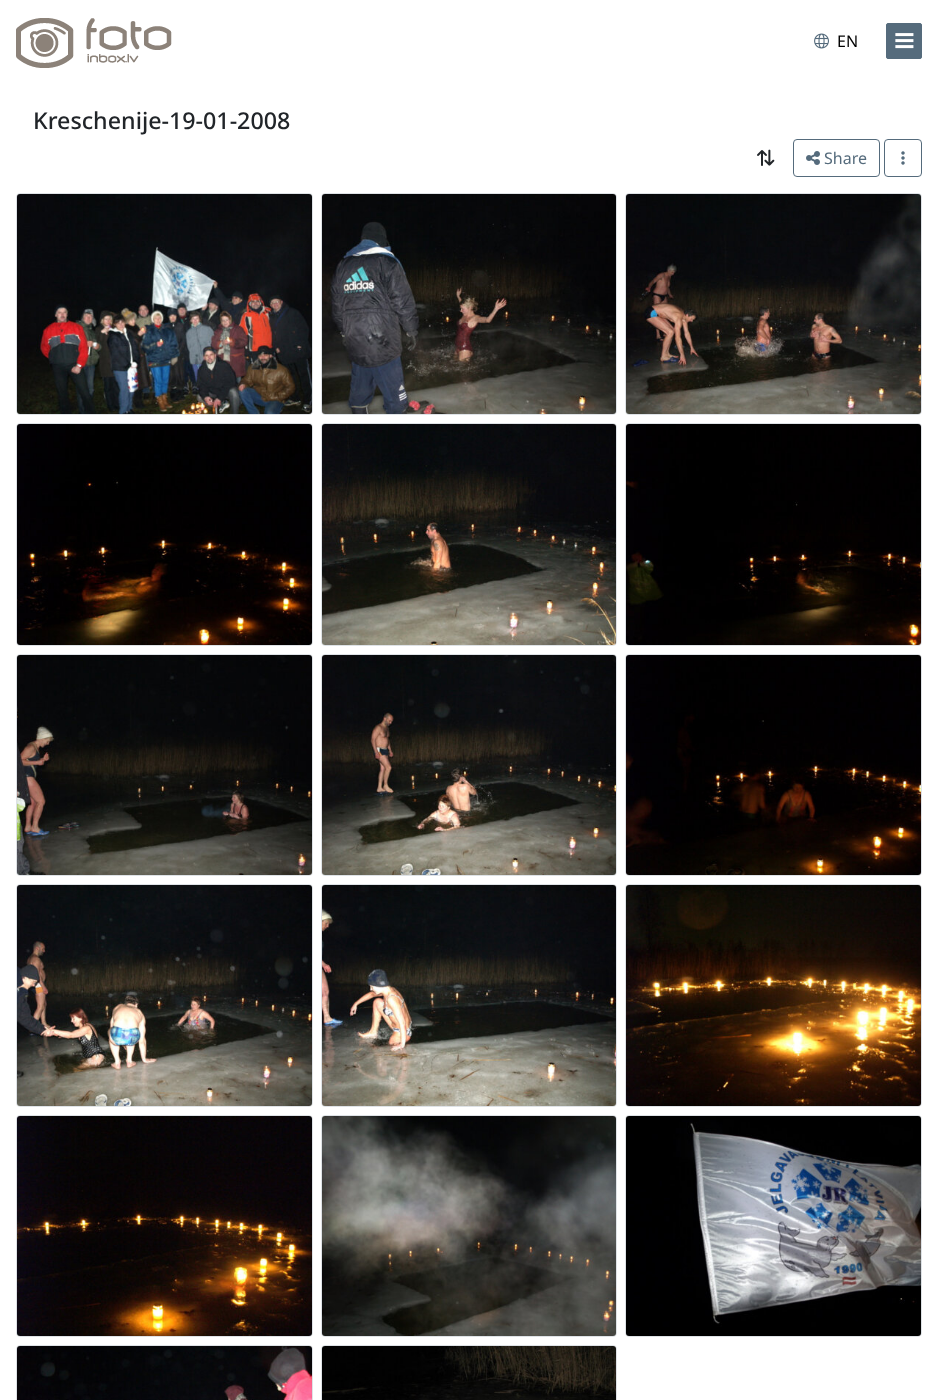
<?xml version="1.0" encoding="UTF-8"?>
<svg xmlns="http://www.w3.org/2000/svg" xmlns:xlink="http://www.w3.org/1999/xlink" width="938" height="1400">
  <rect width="100%" height="100%" fill="#ffffff" />
  <image x="16" y="18" width="156" height="50" xlink:href="image1.png" />
  <image x="814" y="33" width="15" height="16" xlink:href="image2.png" />
  <rect x="886.5" y="23.5" width="35" height="35" rx="1.5" fill="#556b7c" stroke="#556b7c" />
  <image x="895" y="33" width="19" height="16" xlink:href="image3.png" />
  <image x="757" y="150" width="10" height="16" xlink:href="image4.png" />
  <image x="764" y="149" width="11" height="17" xlink:href="image5.png" />
  <rect x="793.5" y="139.5" width="86" height="37" rx="3.5" fill="none" stroke="#556b7c" />
  <image x="806" y="151" width="14" height="14" xlink:href="image6.png" />
  <rect x="884.5" y="139.5" width="37" height="37" rx="3.5" fill="none" stroke="#556b7c" />
  <image x="901" y="151" width="4" height="14" xlink:href="image7.png" />
  <rect x="16.5" y="193.5" width="296" height="221" rx="3.5" fill="none" stroke="#dee2e6" />
  <image x="17" y="194" width="295" height="220" xlink:href="image8.png" />
  <rect x="321.5" y="193.5" width="295" height="221" rx="3.5" fill="none" stroke="#dee2e6" />
  <image x="322" y="194" width="294" height="220" xlink:href="image9.png" />
  <rect x="625.5" y="193.5" width="296" height="221" rx="3.5" fill="none" stroke="#dee2e6" />
  <image x="626" y="194" width="295" height="220" xlink:href="image10.png" />
  <rect x="16.5" y="423.5" width="296" height="222" rx="3.5" fill="none" stroke="#dee2e6" />
  <image x="17" y="424" width="295" height="221" xlink:href="image11.png" />
  <rect x="321.5" y="423.5" width="295" height="222" rx="3.5" fill="none" stroke="#dee2e6" />
  <image x="322" y="424" width="294" height="221" xlink:href="image12.png" />
  <rect x="625.5" y="423.5" width="296" height="222" rx="3.5" fill="none" stroke="#dee2e6" />
  <image x="626" y="424" width="295" height="221" xlink:href="image13.png" />
  <rect x="16.5" y="654.5" width="296" height="221" rx="3.5" fill="none" stroke="#dee2e6" />
  <image x="17" y="655" width="295" height="220" xlink:href="image14.png" />
  <rect x="321.5" y="654.5" width="295" height="221" rx="3.5" fill="none" stroke="#dee2e6" />
  <image x="322" y="655" width="294" height="220" xlink:href="image15.png" />
  <rect x="625.5" y="654.5" width="296" height="221" rx="3.5" fill="none" stroke="#dee2e6" />
  <image x="626" y="655" width="295" height="220" xlink:href="image16.png" />
  <rect x="16.5" y="884.5" width="296" height="222" rx="3.5" fill="none" stroke="#dee2e6" />
  <image x="17" y="885" width="295" height="221" xlink:href="image17.png" />
  <rect x="321.5" y="884.5" width="295" height="222" rx="3.5" fill="none" stroke="#dee2e6" />
  <image x="322" y="885" width="294" height="221" xlink:href="image18.png" />
  <rect x="625.5" y="884.5" width="296" height="222" rx="3.5" fill="none" stroke="#dee2e6" />
  <image x="626" y="885" width="295" height="221" xlink:href="image19.png" />
  <rect x="16.5" y="1115.5" width="296" height="221" rx="3.5" fill="none" stroke="#dee2e6" />
  <image x="17" y="1116" width="295" height="220" xlink:href="image20.png" />
  <rect x="321.5" y="1115.5" width="295" height="221" rx="3.5" fill="none" stroke="#dee2e6" />
  <image x="322" y="1116" width="294" height="220" xlink:href="image21.png" />
  <rect x="625.5" y="1115.5" width="296" height="221" rx="3.5" fill="none" stroke="#dee2e6" />
  <image x="626" y="1116" width="295" height="220" xlink:href="image22.png" />
  <rect x="16.5" y="1345.5" width="296" height="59" rx="3.5" fill="none" stroke="#dee2e6" />
  <image x="17" y="1346" width="295" height="54" xlink:href="image23.png" />
  <rect x="321.5" y="1345.5" width="295" height="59" rx="3.5" fill="none" stroke="#dee2e6" />
  <image x="322" y="1346" width="294" height="54" xlink:href="image24.png" />
  <text x="837" y="47" style="font-family: Noto Sans; font-size: 16px; fill: #000000">EN</text>
  <text x="33" y="129" style="font-family: Noto Sans; font-size: 23.25px; font-weight: 500; fill: #212529">Kreschenije-19-01-2008</text>
  <text x="824" y="164" style="font-family: Noto Sans; font-size: 16px; fill: #556b7c">Share</text>
</svg>
